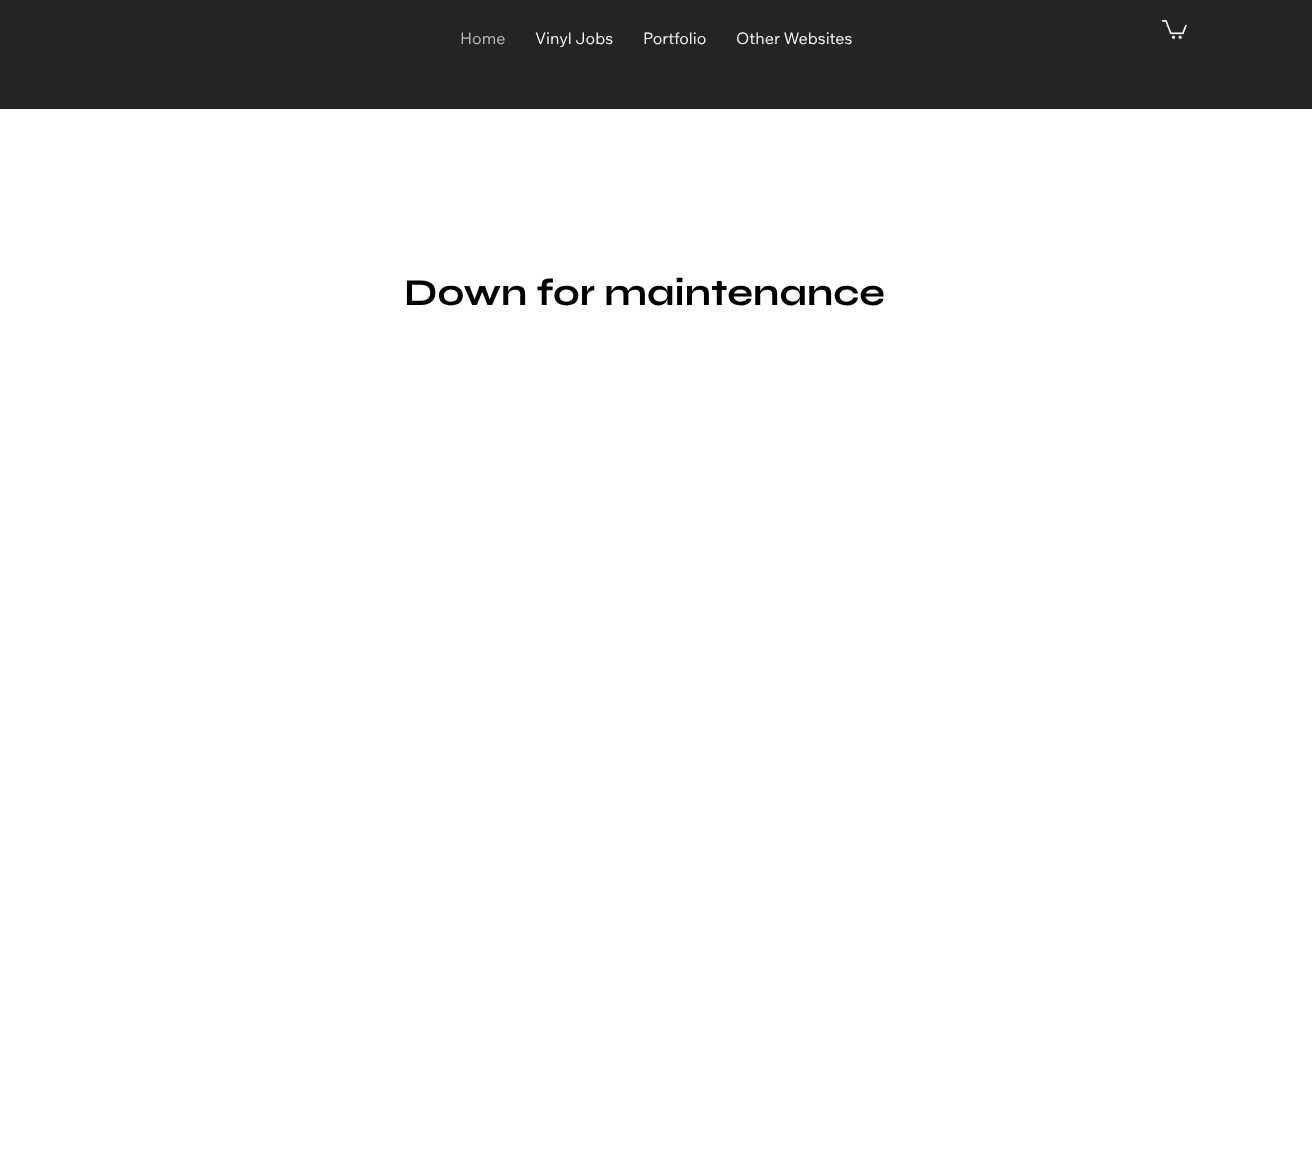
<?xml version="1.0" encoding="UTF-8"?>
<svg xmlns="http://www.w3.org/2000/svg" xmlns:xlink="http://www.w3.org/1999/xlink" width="1312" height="1161">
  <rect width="100%" height="100%" fill="#ffffff" />
  <rect width="1312" height="109" fill="#242424" />
  <image x="1162" y="20" width="25" height="19" xlink:href="image1.png" />
  <text x="460" y="44" style="font-family: Wix Madefor Text; font-size: 16px; fill: #bfbfbf">Home</text>
  <text x="535" y="44" style="font-family: Wix Madefor Text; font-size: 16px; fill: #ffffff">Vinyl Jobs</text>
  <text x="643" y="44" style="font-family: Wix Madefor Text; font-size: 16px; fill: #ffffff">Portfolio</text>
  <text x="736" y="44" style="font-family: Wix Madefor Text; font-size: 16px; fill: #ffffff">Other Websites</text>
  <text x="404" y="305" style="font-family: Syne; font-size: 38px; font-weight: bold; fill: #000000">Down for maintenance</text>
</svg>
